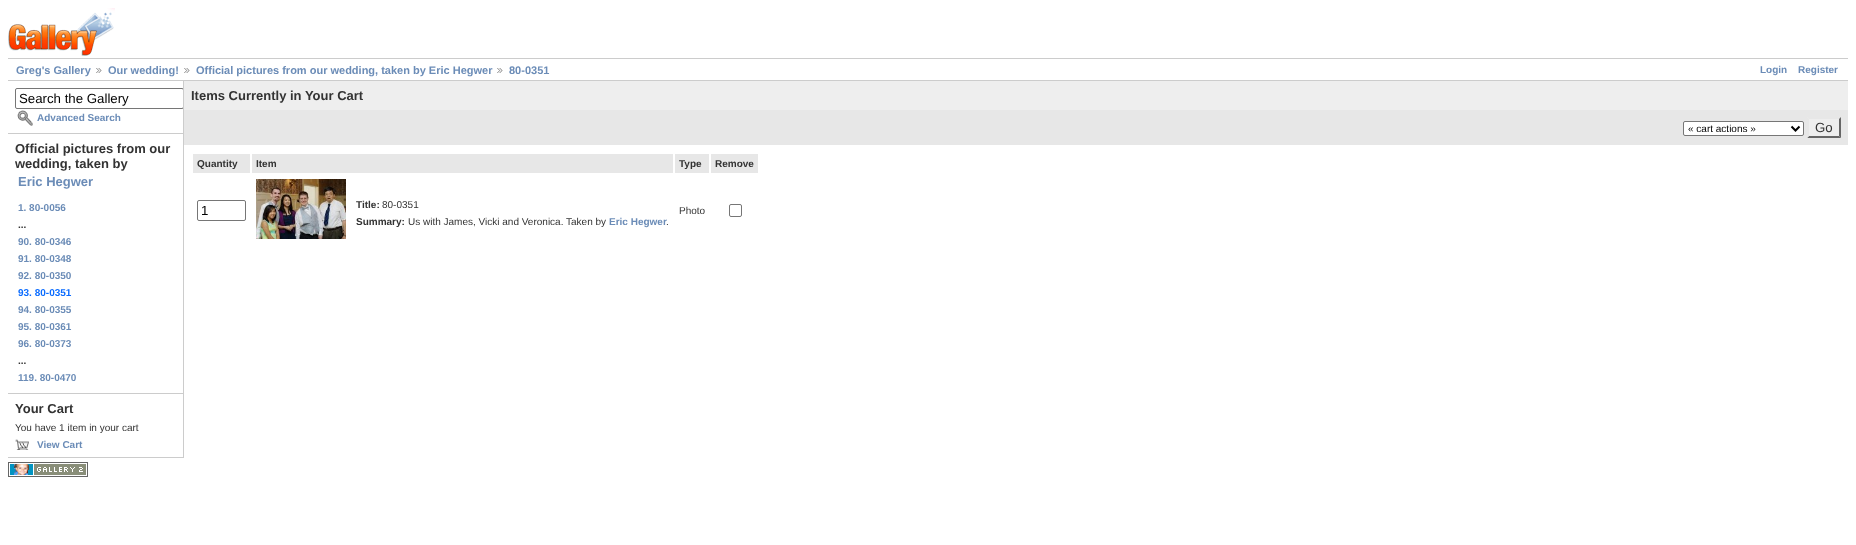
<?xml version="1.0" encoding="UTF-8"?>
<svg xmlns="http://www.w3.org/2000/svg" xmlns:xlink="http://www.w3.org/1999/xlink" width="1856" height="545">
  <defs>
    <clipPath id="clip1"><rect x="8" y="81" width="175" height="377" /></clipPath>
  </defs>
  <rect width="100%" height="100%" fill="#ffffff" />
  <image x="8" y="8" width="107" height="48" xlink:href="image1.png" />
  <rect x="8" y="58" width="1840" height="1" fill="#cccccc" />
  <rect x="8" y="80" width="1840" height="1" fill="#cccccc" />
  <image x="96" y="68" width="6" height="5" xlink:href="image2.png" />
  <image x="184" y="68" width="6" height="5" xlink:href="image2.png" />
  <image x="497" y="68" width="6" height="5" xlink:href="image2.png" />
  <rect x="183" y="81" width="1" height="377" fill="#cccccc" />
  <rect x="8" y="133" width="175" height="1" fill="#cccccc" />
  <g clip-path="url(#clip1)">
    <rect x="15.5" y="88.5" width="168" height="20" rx="1.5" fill="none" stroke="#767676" />
  </g>
  <image x="17" y="110" width="16" height="16" xlink:href="image3.png" />
  <rect x="8" y="393" width="175" height="1" fill="#cccccc" />
  <rect x="8" y="457" width="175" height="1" fill="#cccccc" />
  <image x="15" y="439" width="14" height="11" xlink:href="image4.png" />
  <rect x="184" y="81" width="1664" height="29" fill="#eeeeee" />
  <rect x="184" y="110" width="1664" height="35" fill="#e7e7e7" />
  <rect x="1683.5" y="121.5" width="120" height="14" rx="1.5" fill="#ffffff" stroke="#767676" />
  <path d="M 1791.5 126.5 l 4 4 l 4 -4" fill="none" stroke="#000000" stroke-width="2" />
  <rect x="1807" y="117" width="34" height="21" fill="#eeeeee" />
  <path d="M 1807 117 h 34 l -2 2 h -30 z" fill="#e7e7e7" />
  <path d="M 1841 117 v 21 l -2 -2 v -17 z" fill="#666666" />
  <path d="M 1841 138 h -34 l 2 -2 h 30 z" fill="#666666" />
  <path d="M 1807 138 v -21 l 2 2 v 17 z" fill="#e7e7e7" />
  <rect x="193" y="154" width="57" height="19" fill="#e7e7e7" />
  <rect x="252" y="154" width="421" height="19" fill="#e7e7e7" />
  <rect x="675" y="154" width="34" height="19" fill="#e7e7e7" />
  <rect x="711" y="154" width="47" height="19" fill="#e7e7e7" />
  <rect x="197.5" y="200.5" width="48" height="20" rx="1.5" fill="none" stroke="#767676" />
  <image x="256" y="179" width="90" height="60" xlink:href="image5.png" />
  <rect x="729.5" y="204.5" width="12" height="12" rx="1.5" fill="none" stroke="#767676" />
  <image x="8" y="462" width="80" height="15" xlink:href="image6.png" />
  <text x="16" y="74" style="font-family: Liberation Sans; font-size: 11px; font-weight: bold; fill: #6b8cb7">Greg's Gallery</text>
  <text x="108" y="74" style="font-family: Liberation Sans; font-size: 11px; font-weight: bold; fill: #6b8cb7">Our wedding!</text>
  <text x="196" y="74" style="font-family: Liberation Sans; font-size: 11px; font-weight: bold; fill: #6b8cb7">Official pictures from our wedding, taken by Eric Hegwer</text>
  <text x="509" y="74" style="font-family: Liberation Sans; font-size: 11px; font-weight: bold; fill: #6b8cb7">80-0351</text>
  <text x="1760" y="73" style="font-family: Liberation Sans; font-size: 10px; font-weight: bold; fill: #6b8cb7">Login</text>
  <text x="1798" y="73" style="font-family: Liberation Sans; font-size: 10px; font-weight: bold; fill: #6b8cb7">Register</text>
  <text x="19" y="103" style="font-family: Liberation Sans; font-size: 13.25px; fill: #000000">Search the Gallery</text>
  <text x="37" y="121" style="font-family: Liberation Sans; font-size: 10px; font-weight: bold; fill: #6b8cb7">Advanced Search</text>
  <text x="15" y="153" style="font-family: Liberation Sans; font-size: 13px; font-weight: bold; fill: #333333">Official pictures from our</text>
  <text x="15" y="168" style="font-family: Liberation Sans; font-size: 13px; font-weight: bold; fill: #333333">wedding, taken by</text>
  <text x="18" y="186" style="font-family: Liberation Sans; font-size: 13px; font-weight: bold; fill: #6b8cb7">Eric Hegwer</text>
  <text x="18" y="211" style="font-family: Liberation Sans; font-size: 10px; font-weight: bold; fill: #6b8cb7">1. 80-0056</text>
  <text x="18" y="228" style="font-family: Liberation Sans; font-size: 10px; font-weight: bold; fill: #333333">...</text>
  <text x="18" y="245" style="font-family: Liberation Sans; font-size: 10px; font-weight: bold; fill: #6b8cb7">90. 80-0346</text>
  <text x="18" y="262" style="font-family: Liberation Sans; font-size: 10px; font-weight: bold; fill: #6b8cb7">91. 80-0348</text>
  <text x="18" y="279" style="font-family: Liberation Sans; font-size: 10px; font-weight: bold; fill: #6b8cb7">92. 80-0350</text>
  <text x="18" y="296" style="font-family: Liberation Sans; font-size: 10px; font-weight: bold; fill: #0b6cff">93. 80-0351</text>
  <text x="18" y="313" style="font-family: Liberation Sans; font-size: 10px; font-weight: bold; fill: #6b8cb7">94. 80-0355</text>
  <text x="18" y="330" style="font-family: Liberation Sans; font-size: 10px; font-weight: bold; fill: #6b8cb7">95. 80-0361</text>
  <text x="18" y="347" style="font-family: Liberation Sans; font-size: 10px; font-weight: bold; fill: #6b8cb7">96. 80-0373</text>
  <text x="18" y="364" style="font-family: Liberation Sans; font-size: 10px; font-weight: bold; fill: #333333">...</text>
  <text x="18" y="381" style="font-family: Liberation Sans; font-size: 10px; font-weight: bold; fill: #6b8cb7">119. 80-0470</text>
  <text x="15" y="413" style="font-family: Liberation Sans; font-size: 13px; font-weight: bold; fill: #333333">Your Cart</text>
  <text x="15" y="431" style="font-family: Liberation Sans; font-size: 10px; fill: #333333">You have 1 item in your cart</text>
  <text x="37" y="448" style="font-family: Liberation Sans; font-size: 10px; font-weight: bold; fill: #6b8cb7">View Cart</text>
  <text x="191" y="100" style="font-family: Liberation Sans; font-size: 13px; font-weight: bold; fill: #333333">Items Currently in Your Cart</text>
  <text x="1688" y="132" style="font-family: Liberation Sans; font-size: 10px; fill: #000000">« cart actions »</text>
  <text x="1815" y="132" style="font-family: Liberation Sans; font-size: 13.25px; fill: #333333">Go</text>
  <text x="197" y="167" style="font-family: Liberation Sans; font-size: 10px; font-weight: bold; fill: #333333">Quantity</text>
  <text x="256" y="167" style="font-family: Liberation Sans; font-size: 10px; font-weight: bold; fill: #333333">Item</text>
  <text x="679" y="167" style="font-family: Liberation Sans; font-size: 10px; font-weight: bold; fill: #333333">Type</text>
  <text x="715" y="167" style="font-family: Liberation Sans; font-size: 10px; font-weight: bold; fill: #333333">Remove</text>
  <text x="201" y="215" style="font-family: Liberation Sans; font-size: 13.25px; fill: #000000">1</text>
  <text x="356" y="208" style="font-family: Liberation Sans; font-size: 10px; font-weight: bold; fill: #333333">Title:</text>
  <text x="382" y="208" style="font-family: Liberation Sans; font-size: 10px; fill: #333333">80-0351</text>
  <text x="356" y="225" style="font-family: Liberation Sans; font-size: 10px; font-weight: bold; fill: #333333">Summary:</text>
  <text x="408" y="225" style="font-family: Liberation Sans; font-size: 10px; fill: #333333">Us with James, Vicki and Veronica. Taken by</text>
  <text x="609" y="225" style="font-family: Liberation Sans; font-size: 10px; font-weight: bold; fill: #6b8cb7">Eric Hegwer</text>
  <text x="666" y="225" style="font-family: Liberation Sans; font-size: 10px; fill: #333333">.</text>
  <text x="679" y="214" style="font-family: Liberation Sans; font-size: 10px; fill: #333333">Photo</text>
</svg>
